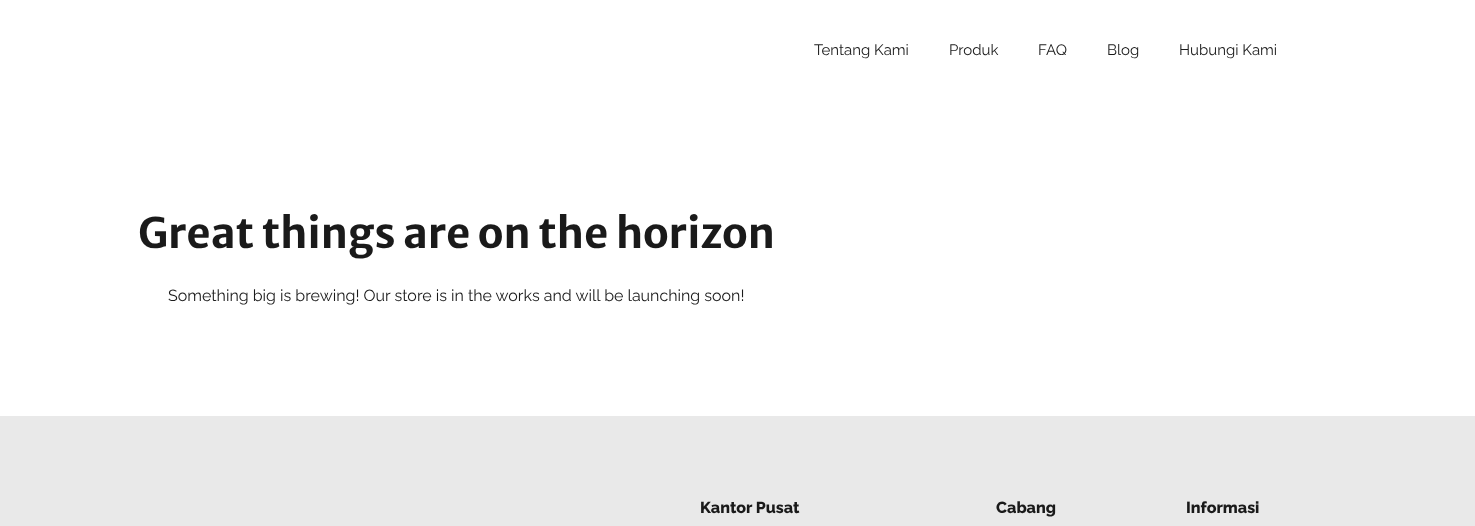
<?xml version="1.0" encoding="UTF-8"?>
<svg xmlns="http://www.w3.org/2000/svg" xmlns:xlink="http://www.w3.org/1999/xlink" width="1475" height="526">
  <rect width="100%" height="100%" fill="#ffffff" />
  <rect y="416" width="1475" height="110" fill="#e9e9e9" />
  <text x="814" y="55" style="font-family: Raleway; font-size: 15px; fill: #1a1a1a">Tentang Kami</text>
  <text x="949" y="55" style="font-family: Raleway; font-size: 15px; fill: #1a1a1a">Produk</text>
  <text x="1038" y="55" style="font-family: Raleway; font-size: 15px; fill: #1a1a1a">FAQ</text>
  <text x="1107" y="55" style="font-family: Raleway; font-size: 15px; fill: #1a1a1a">Blog</text>
  <text x="1179" y="55" style="font-family: Raleway; font-size: 15px; fill: #1a1a1a">Hubungi Kami</text>
  <text x="138" y="248" style="font-family: Merriweather Sans; font-size: 42px; font-weight: bold; fill: #1a1a1a">Great things are on the horizon</text>
  <text x="168" y="301" style="font-family: Raleway; font-size: 16px; fill: #1a1a1a">Something big is brewing! Our store is in the works and will be launching soon!</text>
  <text x="700" y="513" style="font-family: Raleway; font-size: 16px; font-weight: 800; fill: #1a1a1a">Kantor Pusat</text>
  <text x="996" y="513" style="font-family: Raleway; font-size: 16px; font-weight: 800; fill: #1a1a1a">Cabang</text>
  <text x="1186" y="513" style="font-family: Raleway; font-size: 16px; font-weight: 800; fill: #1a1a1a">Informasi</text>
</svg>
